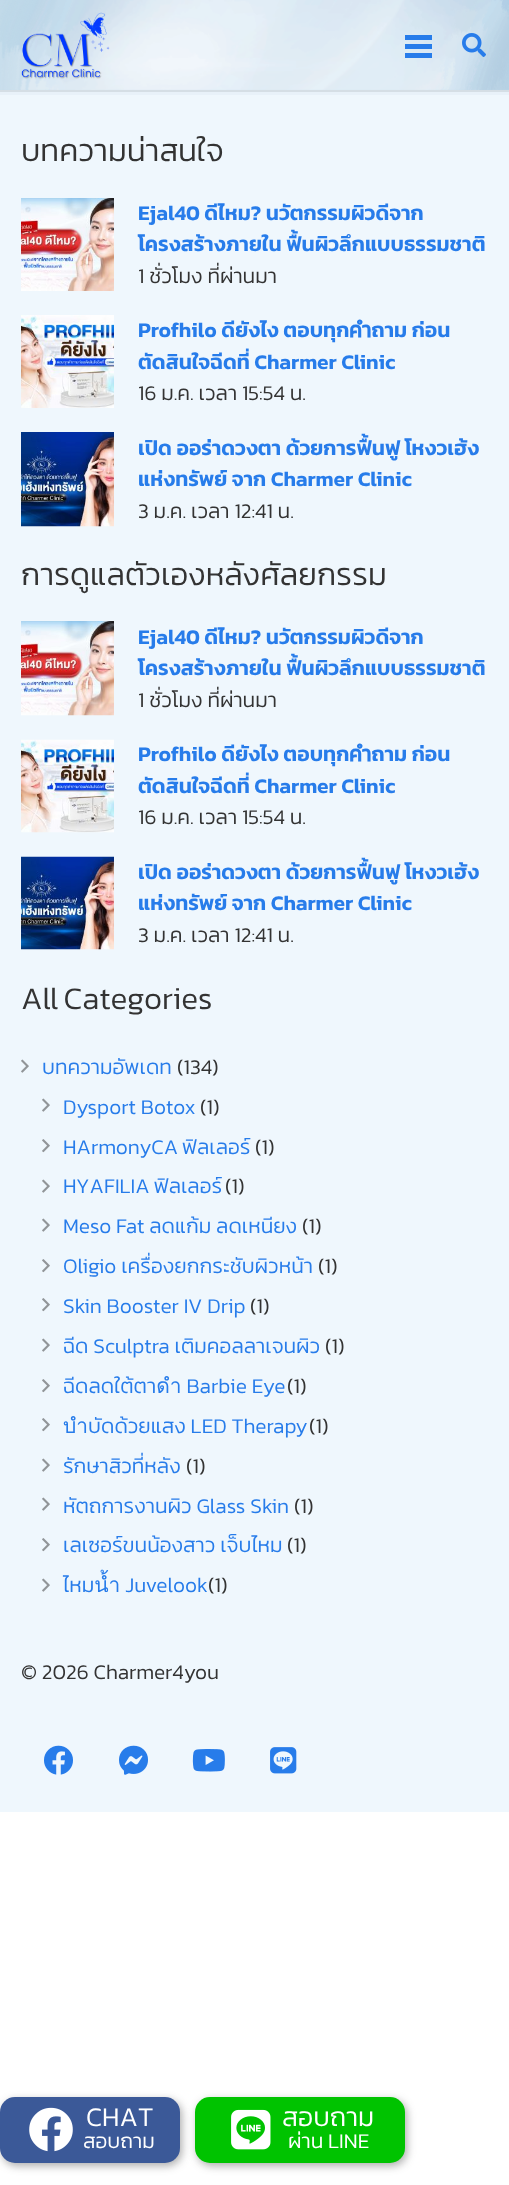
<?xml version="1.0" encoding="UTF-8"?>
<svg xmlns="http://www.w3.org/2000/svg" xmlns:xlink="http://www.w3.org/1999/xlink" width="509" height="2185">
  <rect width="100%" height="100%" fill="#ffffff" />
  <rect y="90" width="509" height="2" fill="#d5dee5" />
  <rect width="509" height="90" fill="#c1dae9" />
  <image x="0" y="0" width="509" height="90" xlink:href="image1.png" />
  <image x="21" y="12" width="89" height="67" xlink:href="image2.png" />
  <rect x="405" y="44" width="27" height="5" fill="#277cea" />
  <rect x="405" y="35" width="27" height="5" fill="#277cea" />
  <rect x="405" y="53" width="27" height="5" fill="#277cea" />
  <image x="462" y="33" width="24" height="24" xlink:href="image3.png" />
  <rect y="95" width="509" height="1717" fill="#eff7fd" />
  <rect y="92" width="509" height="3" fill="#e8f1f9" />
  <image x="21" y="198" width="93" height="93" xlink:href="image4.png" />
  <image x="21" y="315" width="93" height="93" xlink:href="image5.png" />
  <image x="21" y="432" width="93" height="95" xlink:href="image6.png" />
  <image x="21" y="621" width="93" height="95" xlink:href="image7.png" />
  <image x="21" y="739" width="93" height="94" xlink:href="image8.png" />
  <image x="21" y="856" width="93" height="94" xlink:href="image9.png" />
  <image x="21" y="1059" width="8" height="14" xlink:href="image10.png" />
  <image x="42" y="1098" width="8" height="14" xlink:href="image10.png" />
  <image x="42" y="1139" width="8" height="14" xlink:href="image11.png" />
  <image x="42" y="1179" width="8" height="14" xlink:href="image10.png" />
  <image x="42" y="1218" width="8" height="14" xlink:href="image10.png" />
  <image x="42" y="1259" width="8" height="14" xlink:href="image11.png" />
  <image x="42" y="1298" width="8" height="14" xlink:href="image11.png" />
  <image x="42" y="1338" width="8" height="14" xlink:href="image10.png" />
  <image x="42" y="1379" width="8" height="14" xlink:href="image11.png" />
  <image x="42" y="1418" width="8" height="14" xlink:href="image11.png" />
  <image x="42" y="1458" width="8" height="14" xlink:href="image10.png" />
  <image x="42" y="1497" width="8" height="14" xlink:href="image10.png" />
  <image x="42" y="1538" width="8" height="14" xlink:href="image11.png" />
  <image x="42" y="1578" width="8" height="14" xlink:href="image10.png" />
  <image x="44" y="1745" width="29" height="30" xlink:href="image12.png" />
  <image x="119" y="1745" width="29" height="30" xlink:href="image13.png" />
  <image x="192" y="1749" width="33" height="23" xlink:href="image14.png" />
  <image x="270" y="1747" width="27" height="27" xlink:href="image15.png" />
  <rect x="2" y="2100" width="180" height="66" rx="15" fill="#333333" fill-opacity="0.4" filter="blur(4px)" />
  <rect y="2097" width="180" height="66" rx="15" fill="#3b5998" />
  <image x="29" y="2107" width="44" height="45" xlink:href="image16.png" />
  <rect x="197" y="2100" width="210" height="66" rx="15" fill="#333333" fill-opacity="0.4" filter="blur(4px)" />
  <rect x="195" y="2097" width="210" height="66" rx="15" fill="#00c300" />
  <image x="231" y="2109" width="40" height="41" xlink:href="image17.png" />
  <text x="21" y="161" style="font-family: Kanit; font-size: 31.5px; font-weight: 300; fill: #333333">บทความน่าสนใจ</text>
  <text x="138" y="220" style="font-family: Kanit; font-size: 21px; font-weight: 600; fill: #277cea">Ejal40 ดีไหม? นวัตกรรมผิวดีจาก</text>
  <text x="138" y="251" style="font-family: Kanit; font-size: 21px; font-weight: 600; fill: #277cea">โครงสร้างภายใน ฟื้นผิวลึกแบบธรรมชาติ</text>
  <text x="138" y="283" style="font-family: Kanit; font-size: 21px; font-weight: 300; fill: #333333">1 ชั่วโมง ที่ผ่านมา</text>
  <text x="138" y="337" style="font-family: Kanit; font-size: 21px; font-weight: 600; fill: #277cea">Profhilo ดียังไง ตอบทุกคำถาม ก่อน</text>
  <text x="138" y="369" style="font-family: Kanit; font-size: 21px; font-weight: 600; fill: #277cea">ตัดสินใจฉีดที่ Charmer Clinic</text>
  <text x="138" y="400" style="font-family: Kanit; font-size: 21px; font-weight: 300; fill: #333333">16 ม.ค. เวลา 15:54 น.</text>
  <text x="138" y="455" style="font-family: Kanit; font-size: 21px; font-weight: 600; fill: #277cea">เปิด ออร่าดวงตา ด้วยการฟื้นฟู โหงวเฮ้ง</text>
  <text x="138" y="486" style="font-family: Kanit; font-size: 21px; font-weight: 600; fill: #277cea">แห่งทรัพย์ จาก Charmer Clinic</text>
  <text x="138" y="518" style="font-family: Kanit; font-size: 21px; font-weight: 300; fill: #333333">3 ม.ค. เวลา 12:41 น.</text>
  <text x="21" y="585" style="font-family: Kanit; font-size: 31.5px; font-weight: 300; fill: #333333">การดูแลตัวเองหลังศัลยกรรม</text>
  <text x="138" y="644" style="font-family: Kanit; font-size: 21px; font-weight: 600; fill: #277cea">Ejal40 ดีไหม? นวัตกรรมผิวดีจาก</text>
  <text x="138" y="675" style="font-family: Kanit; font-size: 21px; font-weight: 600; fill: #277cea">โครงสร้างภายใน ฟื้นผิวลึกแบบธรรมชาติ</text>
  <text x="138" y="707" style="font-family: Kanit; font-size: 21px; font-weight: 300; fill: #333333">1 ชั่วโมง ที่ผ่านมา</text>
  <text x="138" y="761" style="font-family: Kanit; font-size: 21px; font-weight: 600; fill: #277cea">Profhilo ดียังไง ตอบทุกคำถาม ก่อน</text>
  <text x="138" y="793" style="font-family: Kanit; font-size: 21px; font-weight: 600; fill: #277cea">ตัดสินใจฉีดที่ Charmer Clinic</text>
  <text x="138" y="824" style="font-family: Kanit; font-size: 21px; font-weight: 300; fill: #333333">16 ม.ค. เวลา 15:54 น.</text>
  <text x="138" y="879" style="font-family: Kanit; font-size: 21px; font-weight: 600; fill: #277cea">เปิด ออร่าดวงตา ด้วยการฟื้นฟู โหงวเฮ้ง</text>
  <text x="138" y="910" style="font-family: Kanit; font-size: 21px; font-weight: 600; fill: #277cea">แห่งทรัพย์ จาก Charmer Clinic</text>
  <text x="138" y="942" style="font-family: Kanit; font-size: 21px; font-weight: 300; fill: #333333">3 ม.ค. เวลา 12:41 น.</text>
  <text x="21" y="1009" word-spacing="-2" style="font-family: Kanit; font-size: 31.5px; font-weight: 300; fill: #333333">All Categories</text>
  <text x="42" y="1074" style="font-family: Kanit; font-size: 21px; font-weight: 300; fill: #277cea">บทความอัพเดท</text>
  <text x="177" y="1074" style="font-family: Kanit; font-size: 21px; font-weight: 300; fill: #333333">(134)</text>
  <text x="63" y="1114" style="font-family: Kanit; font-size: 21px; font-weight: 300; fill: #277cea">Dysport Botox</text>
  <text x="200" y="1114" style="font-family: Kanit; font-size: 21px; font-weight: 300; fill: #333333">(1)</text>
  <text x="63" y="1154" word-spacing="-1" style="font-family: Kanit; font-size: 21px; font-weight: 300; fill: #277cea">HArmonyCA ฟิลเลอร์</text>
  <text x="255" y="1154" style="font-family: Kanit; font-size: 21px; font-weight: 300; fill: #333333">(1)</text>
  <text x="63" y="1193" word-spacing="-1" style="font-family: Kanit; font-size: 21px; font-weight: 300; fill: #277cea">HYAFILIA ฟิลเลอร์</text>
  <text x="225" y="1193" style="font-family: Kanit; font-size: 21px; font-weight: 300; fill: #333333">(1)</text>
  <text x="63" y="1233" style="font-family: Kanit; font-size: 21px; font-weight: 300; fill: #277cea">Meso Fat ลดแก้ม ลดเหนียง</text>
  <text x="302" y="1233" style="font-family: Kanit; font-size: 21px; font-weight: 300; fill: #333333">(1)</text>
  <text x="63" y="1273" style="font-family: Kanit; font-size: 21px; font-weight: 300; fill: #277cea">Oligio เครื่องยกกระชับผิวหน้า</text>
  <text x="318" y="1273" style="font-family: Kanit; font-size: 21px; font-weight: 300; fill: #333333">(1)</text>
  <text x="63" y="1313" style="font-family: Kanit; font-size: 21px; font-weight: 300; fill: #277cea">Skin Booster IV Drip</text>
  <text x="250" y="1313" style="font-family: Kanit; font-size: 21px; font-weight: 300; fill: #333333">(1)</text>
  <text x="63" y="1353" style="font-family: Kanit; font-size: 21px; font-weight: 300; fill: #277cea">ฉีด Sculptra เติมคอลลาเจนผิว</text>
  <text x="325" y="1353" style="font-family: Kanit; font-size: 21px; font-weight: 300; fill: #333333">(1)</text>
  <text x="63" y="1393" style="font-family: Kanit; font-size: 21px; font-weight: 300; fill: #277cea">ฉีดลดใต้ตาดำ Barbie Eye</text>
  <text x="287" y="1393" style="font-family: Kanit; font-size: 21px; font-weight: 300; fill: #333333">(1)</text>
  <text x="63" y="1433" style="font-family: Kanit; font-size: 21px; font-weight: 300; fill: #277cea">บำบัดด้วยแสง LED Therapy</text>
  <text x="309" y="1433" style="font-family: Kanit; font-size: 21px; font-weight: 300; fill: #333333">(1)</text>
  <text x="63" y="1473" style="font-family: Kanit; font-size: 21px; font-weight: 300; fill: #277cea">รักษาสิวที่หลัง</text>
  <text x="186" y="1473" style="font-family: Kanit; font-size: 21px; font-weight: 300; fill: #333333">(1)</text>
  <text x="63" y="1513" style="font-family: Kanit; font-size: 21px; font-weight: 300; fill: #277cea">หัตถการงานผิว Glass Skin</text>
  <text x="294" y="1513" style="font-family: Kanit; font-size: 21px; font-weight: 300; fill: #333333">(1)</text>
  <text x="63" y="1552" style="font-family: Kanit; font-size: 21px; font-weight: 300; fill: #277cea">เลเซอร์ขนน้องสาว เจ็บไหม</text>
  <text x="287" y="1552" style="font-family: Kanit; font-size: 21px; font-weight: 300; fill: #333333">(1)</text>
  <text x="63" y="1592" style="font-family: Kanit; font-size: 21px; font-weight: 300; fill: #277cea">ไหมน้ำ Juvelook</text>
  <text x="208" y="1592" style="font-family: Kanit; font-size: 21px; font-weight: 300; fill: #333333">(1)</text>
  <text x="21" y="1679" style="font-family: Kanit; font-size: 21px; font-weight: 300; fill: #333333">© 2026 Charmer4you</text>
  <text x="86" y="2126" style="font-family: Kanit; font-size: 27px; font-weight: 300; fill: #ffffff">CHAT</text>
  <text x="83" y="2148" style="font-family: Kanit; font-size: 21px; font-weight: 300; fill: #ffffff">สอบถาม</text>
  <text x="282" y="2126" style="font-family: Kanit; font-size: 27px; font-weight: 300; fill: #ffffff">สอบถาม</text>
  <text x="288" y="2148" style="font-family: Kanit; font-size: 21px; font-weight: 300; fill: #ffffff">ผ่าน LINE</text>
</svg>
